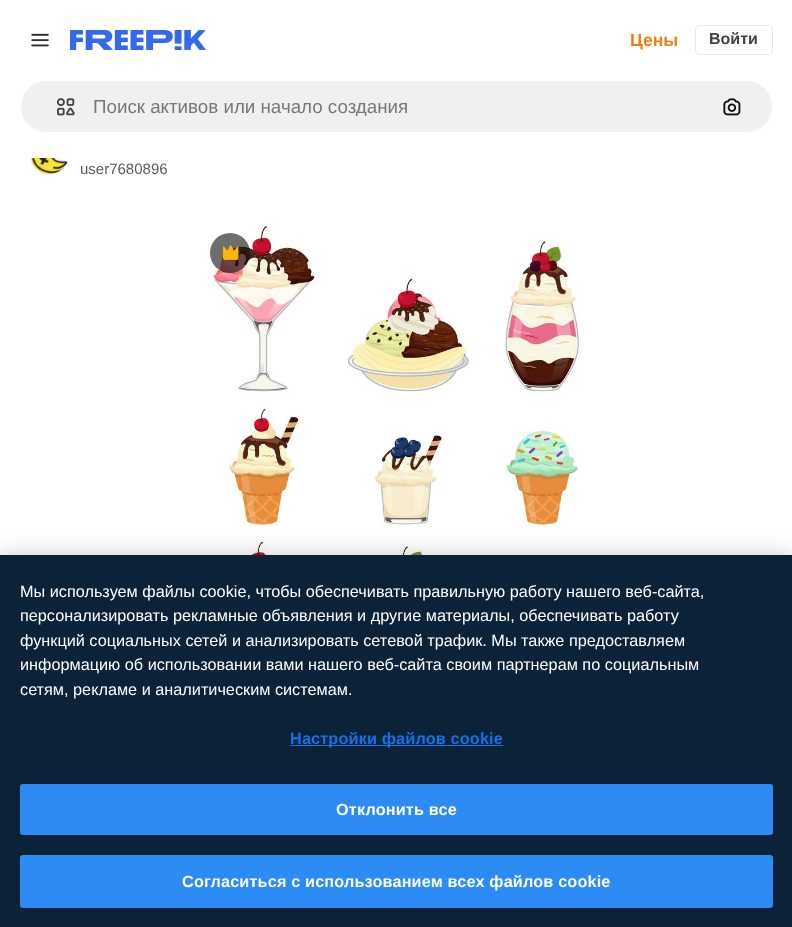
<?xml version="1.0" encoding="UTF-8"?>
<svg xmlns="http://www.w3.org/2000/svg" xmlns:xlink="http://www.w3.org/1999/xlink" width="792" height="927">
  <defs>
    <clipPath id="clip1"><rect x="93" y="95" width="616" height="21" /></clipPath>
  </defs>
  <rect width="100%" height="100%" fill="#ffffff" />
  <image x="31" y="33" width="18" height="14" xlink:href="image1.png" />
  <image x="70" y="30" width="136" height="20" xlink:href="image2.png" />
  <rect x="695.5" y="25.5" width="77" height="29" rx="4.5" fill="none" stroke="#e7e7e7" />
  <rect x="20.5" y="80.5" width="752" height="52" rx="26" fill="#f0f0f0" stroke="#ffffff" />
  <image x="56" y="98" width="19" height="18" xlink:href="image3.png" />
  <image x="723" y="98" width="18" height="18" xlink:href="image4.png" />
  <image x="26" y="158" width="42" height="17" xlink:href="image5.png" />
  <image x="212" y="225" width="371" height="330" xlink:href="image6.png" />
  <circle cx="230" cy="253" r="20" fill="#0d0d0d" fill-opacity="0.6" />
  <image x="223" y="245" width="16" height="15" xlink:href="image7.png" />
  <rect y="555" width="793" height="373" fill="#000000" fill-opacity="0.2" filter="blur(11px)" />
  <rect y="555" width="792" height="372" fill="#0b2239" />
  <rect x="290" y="745" width="213" height="1" fill="#1273eb" />
  <rect x="20.5" y="784.5" width="752" height="50" rx="2" fill="#2c8cf4" stroke="#2c8cf4" />
  <rect x="20.5" y="855.5" width="752" height="52" rx="2" fill="#2c8cf4" stroke="#2c8cf4" />
  <text x="630" y="46" style="font-family: Liberation Sans; font-size: 17.5px; font-weight: bold; fill: #ea7e11">Цены</text>
  <text x="709" y="44" style="font-family: Liberation Sans; font-size: 16px; font-weight: bold; fill: #424242">Войти</text>
  <g clip-path="url(#clip1)">
    <text x="93" y="113" style="font-family: Liberation Sans; font-size: 18.75px; fill: #777777">Поиск активов или начало создания</text>
  </g>
  <text x="80" y="174" style="font-family: Liberation Sans; font-size: 15px; fill: #5c5c5c">user7680896</text>
  <text x="20" y="597" style="font-family: Liberation Sans; font-size: 16.25px; fill: #ffffff">Мы используем файлы cookie, чтобы обеспечивать правильную работу нашего веб-сайта,</text>
  <text x="20" y="621" style="font-family: Liberation Sans; font-size: 16.25px; fill: #ffffff">персонализировать рекламные объявления и другие материалы, обеспечивать работу</text>
  <text x="20" y="646" style="font-family: Liberation Sans; font-size: 16.25px; fill: #ffffff">функций социальных сетей и анализировать сетевой трафик. Мы также предоставляем</text>
  <text x="20" y="670" style="font-family: Liberation Sans; font-size: 16.25px; fill: #ffffff">информацию об использовании вами нашего веб-сайта своим партнерам по социальным</text>
  <text x="20" y="695" style="font-family: Liberation Sans; font-size: 16.25px; fill: #ffffff">сетям, рекламе и аналитическим системам.</text>
  <text x="290" y="744" style="font-family: Liberation Sans; font-size: 16.25px; font-weight: bold; letter-spacing: 0.15px; fill: #1273eb">Настройки файлов cookie</text>
  <text x="336" y="815" style="font-family: Liberation Sans; font-size: 16.25px; font-weight: bold; letter-spacing: 0.15px; fill: #ffffff">Отклонить все</text>
  <text x="182" y="887" style="font-family: Liberation Sans; font-size: 16.25px; font-weight: bold; letter-spacing: 0.15px; fill: #ffffff">Согласиться с использованием всех файлов cookie</text>
</svg>
